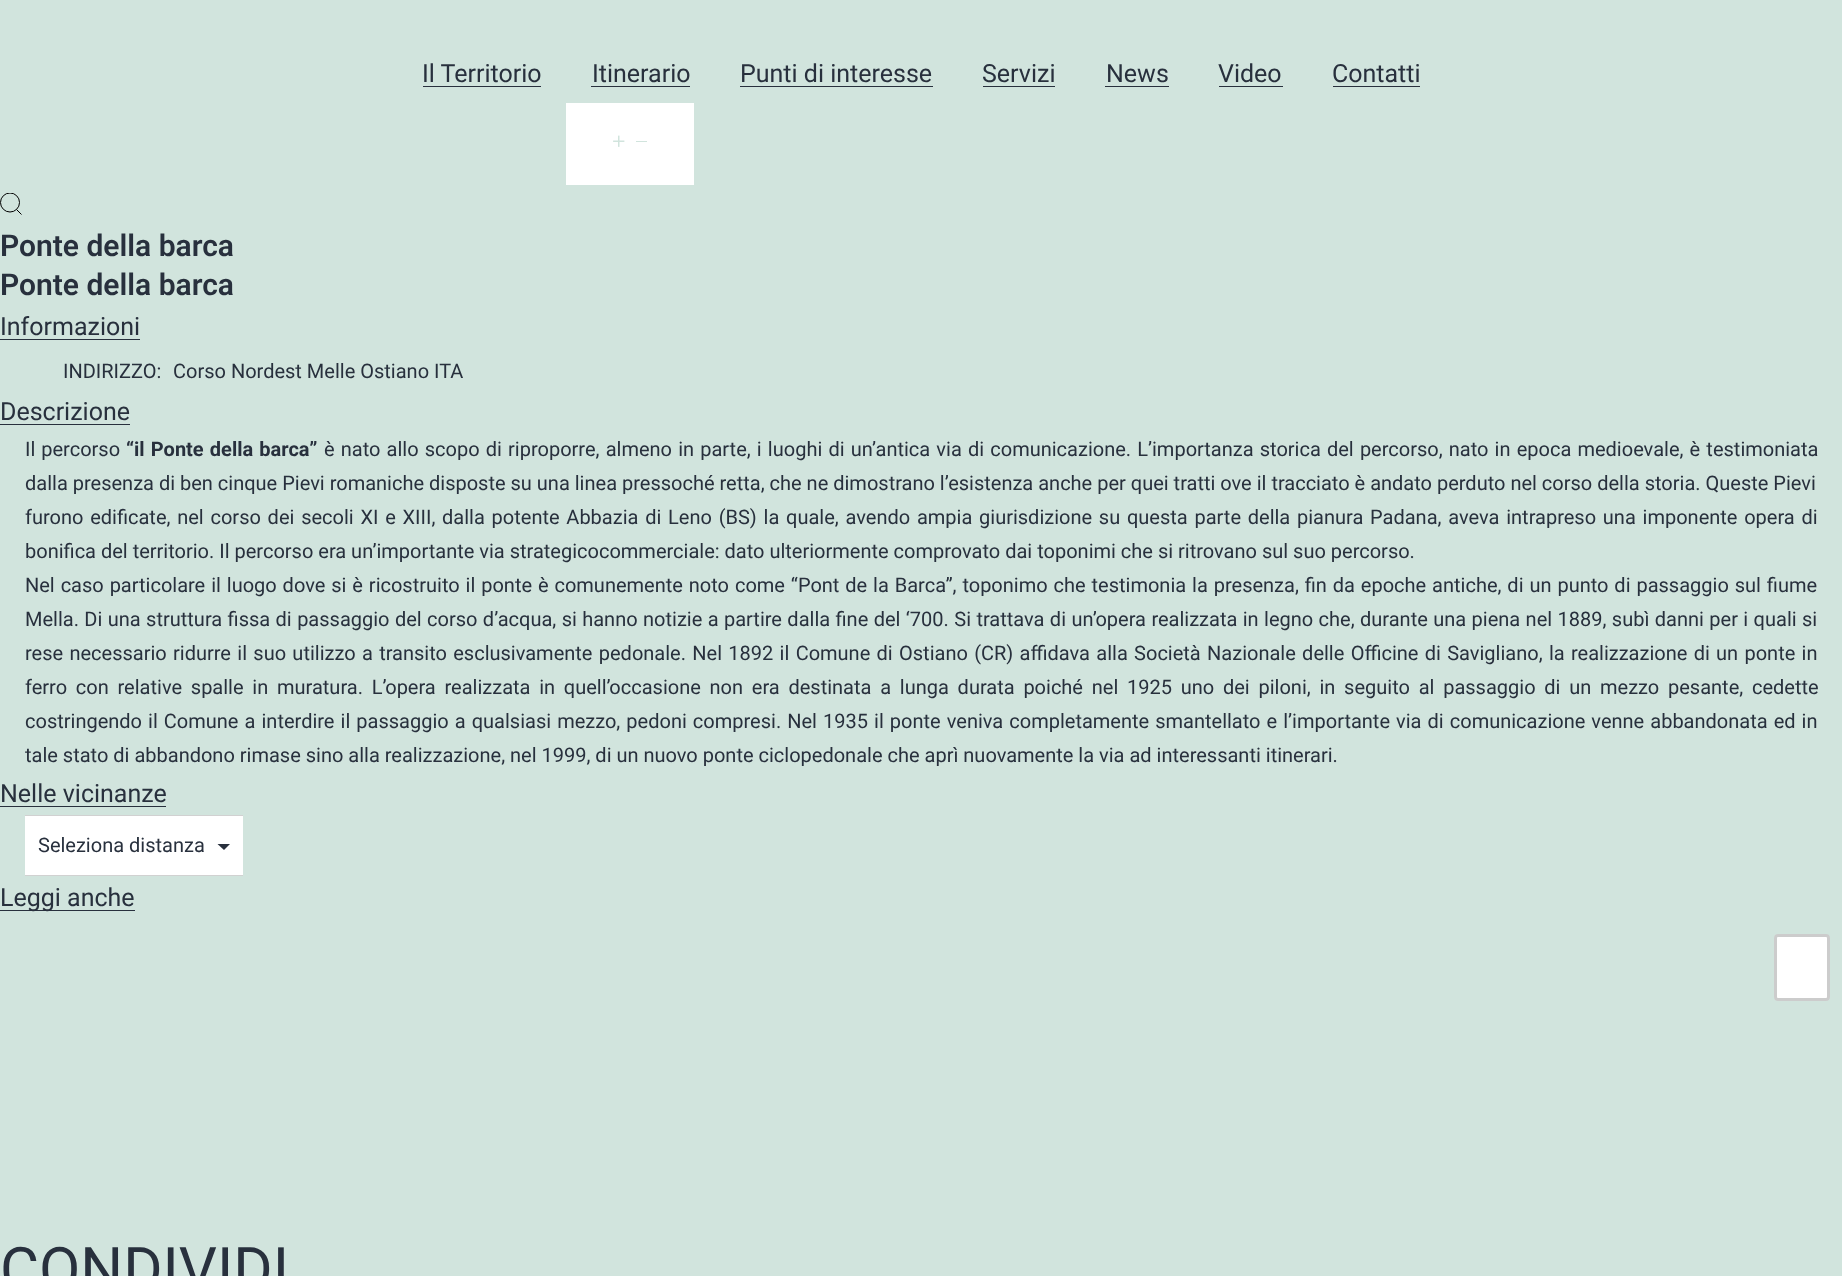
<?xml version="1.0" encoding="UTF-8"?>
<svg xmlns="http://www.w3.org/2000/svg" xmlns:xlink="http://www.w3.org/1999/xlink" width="1842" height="1276">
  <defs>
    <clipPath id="clip1"><rect y="193" width="23" height="22" /></clipPath>
  </defs>
  <rect width="100%" height="100%" fill="#d1e4dd" />
  <rect x="423" y="86" width="118" height="1" fill="#28303d" />
  <rect x="591" y="86" width="99" height="1" fill="#28303d" />
  <rect x="566" y="103" width="128" height="82" fill="#ffffff" />
  <image x="613" y="135" width="12" height="12" xlink:href="image1.png" />
  <rect x="636" y="141" width="11" height="1" fill="#d1e4dd" />
  <rect x="740" y="86" width="193" height="1" fill="#28303d" />
  <rect x="983" y="86" width="72" height="1" fill="#28303d" />
  <rect x="1105" y="86" width="64" height="1" fill="#28303d" />
  <rect x="1219" y="86" width="64" height="1" fill="#28303d" />
  <rect x="1333" y="86" width="87" height="1" fill="#28303d" />
  <g clip-path="url(#clip1)">
    <circle cx="10" cy="202.5" r="9.5" fill="none" stroke="#000000" />
  </g>
  <path d="M 21.5 214.5 l -5 -5" fill="none" stroke="#000000" />
  <rect y="339" width="140" height="1" fill="#28303d" />
  <rect y="424" width="130" height="1" fill="#28303d" />
  <rect y="806" width="166" height="1" fill="#28303d" />
  <rect x="25" y="816" width="218" height="59" fill="#ffffff" />
  <path d="M 217.5 844 h 12.5 l -6 6 z" fill="#28303d" />
  <rect x="25" y="815" width="218" height="1" fill="#d1d1d1" />
  <rect x="25" y="875" width="218" height="1" fill="#d1d1d1" />
  <rect y="910" width="135" height="1" fill="#28303d" />
  <rect x="1774" y="934" width="56" height="67" rx="4" fill="#ffffff" />
  <rect x="1775.5" y="935.5" width="53" height="64" rx="2.5" fill="none" stroke="#000000" stroke-opacity="0.2" stroke-width="3" />
  <text x="422" y="82" style="font-family: Roboto; font-size: 25px; fill: #28303d">Il Territorio</text>
  <text x="592" y="82" style="font-family: Roboto; font-size: 25px; fill: #28303d">Itinerario</text>
  <text x="740" y="82" style="font-family: Roboto; font-size: 25px; fill: #28303d">Punti di interesse</text>
  <text x="982" y="82" style="font-family: Roboto; font-size: 25px; fill: #28303d">Servizi</text>
  <text x="1106" y="82" style="font-family: Roboto; font-size: 25px; fill: #28303d">News</text>
  <text x="1218" y="82" style="font-family: Roboto; font-size: 25px; fill: #28303d">Video</text>
  <text x="1332" y="82" style="font-family: Roboto; font-size: 25px; fill: #28303d">Contatti</text>
  <text x="0" y="256" style="font-family: Roboto; font-size: 30px; font-weight: 600; fill: #28303d">Ponte della barca</text>
  <text x="0" y="295" style="font-family: Roboto; font-size: 30px; font-weight: 600; fill: #28303d">Ponte della barca</text>
  <text x="0" y="335" style="font-family: Roboto; font-size: 25px; fill: #28303d">Informazioni</text>
  <text x="63" y="378" style="font-family: Roboto; font-size: 20px; fill: #28303d">INDIRIZZO:</text>
  <text x="173" y="378" style="font-family: Roboto; font-size: 20px; fill: #28303d">Corso Nordest Melle Ostiano ITA</text>
  <text x="0" y="420" style="font-family: Roboto; font-size: 25px; fill: #28303d">Descrizione</text>
  <text x="25" y="456" word-spacing="1" style="font-family: Roboto; font-size: 20px; fill: #28303d">Il percorso</text>
  <text x="126" y="456" word-spacing="1.2" style="font-family: Roboto; font-size: 20px; font-weight: bold; fill: #28303d">“il Ponte della barca”</text>
  <text x="324" y="456" word-spacing="1.2" style="font-family: Roboto; font-size: 20px; fill: #28303d">è nato allo scopo di riproporre, almeno in parte, i luoghi di un’antica via di comunicazione. L’importanza storica del percorso, nato in epoca medioevale, è testimoniata</text>
  <text x="25" y="490" style="font-family: Roboto; font-size: 20px; fill: #28303d">dalla presenza di ben cinque Pievi romaniche disposte su una linea pressoché retta, che ne dimostrano l’esistenza anche per quei tratti ove il tracciato è andato perduto nel corso della storia. Queste Pievi</text>
  <text x="25" y="524" word-spacing="1.8" style="font-family: Roboto; font-size: 20px; fill: #28303d">furono edificate, nel corso dei secoli XI e XIII, dalla potente Abbazia di Leno (BS) la quale, avendo ampia giurisdizione su questa parte della pianura Padana, aveva intrapreso una imponente opera di</text>
  <text x="25" y="558" style="font-family: Roboto; font-size: 20px; fill: #28303d">bonifica del territorio. Il percorso era un’importante via strategicocommerciale: dato ulteriormente comprovato dai toponimi che si ritrovano sul suo percorso.</text>
  <text x="25" y="592" word-spacing="0.95" style="font-family: Roboto; font-size: 20px; fill: #28303d">Nel caso particolare il luogo dove si è ricostruito il ponte è comunemente noto come “Pont de la Barca”, toponimo che testimonia la presenza, fin da epoche antiche, di un punto di passaggio sul fiume</text>
  <text x="25" y="626" word-spacing="0.45" style="font-family: Roboto; font-size: 20px; fill: #28303d">Mella. Di una struttura fissa di passaggio del corso d’acqua, si hanno notizie a partire dalla fine del ‘700. Si trattava di un’opera realizzata in legno che, durante una piena nel 1889, subì danni per i quali si</text>
  <text x="25" y="660" word-spacing="1.35" style="font-family: Roboto; font-size: 20px; fill: #28303d">rese necessario ridurre il suo utilizzo a transito esclusivamente pedonale. Nel 1892 il Comune di Ostiano (CR) affidava alla Società Nazionale delle Officine di Savigliano, la realizzazione di un ponte in</text>
  <text x="25" y="694" word-spacing="3.8" style="font-family: Roboto; font-size: 20px; fill: #28303d">ferro con relative spalle in muratura. L’opera realizzata in quell’occasione non era destinata a lunga durata poiché nel 1925 uno dei piloni, in seguito al passaggio di un mezzo pesante, cedette</text>
  <text x="25" y="728" word-spacing="1.1" style="font-family: Roboto; font-size: 20px; fill: #28303d">costringendo il Comune a interdire il passaggio a qualsiasi mezzo, pedoni compresi. Nel 1935 il ponte veniva completamente smantellato e l’importante via di comunicazione venne abbandonata ed in</text>
  <text x="25" y="762" style="font-family: Roboto; font-size: 20px; fill: #28303d">tale stato di abbandono rimase sino alla realizzazione, nel 1999, di un nuovo ponte ciclopedonale che aprì nuovamente la via ad interessanti itinerari.</text>
  <text x="0" y="802" style="font-family: Roboto; font-size: 25px; fill: #28303d">Nelle vicinanze</text>
  <text x="38" y="852" style="font-family: Roboto; font-size: 20px; fill: #28303d">Seleziona distanza</text>
  <text x="0" y="906" style="font-family: Roboto; font-size: 25px; fill: #28303d">Leggi anche</text>
  <text x="0" y="1290" style="font-family: Roboto; font-size: 60px; fill: #28303d">CONDIVIDI</text>
</svg>
